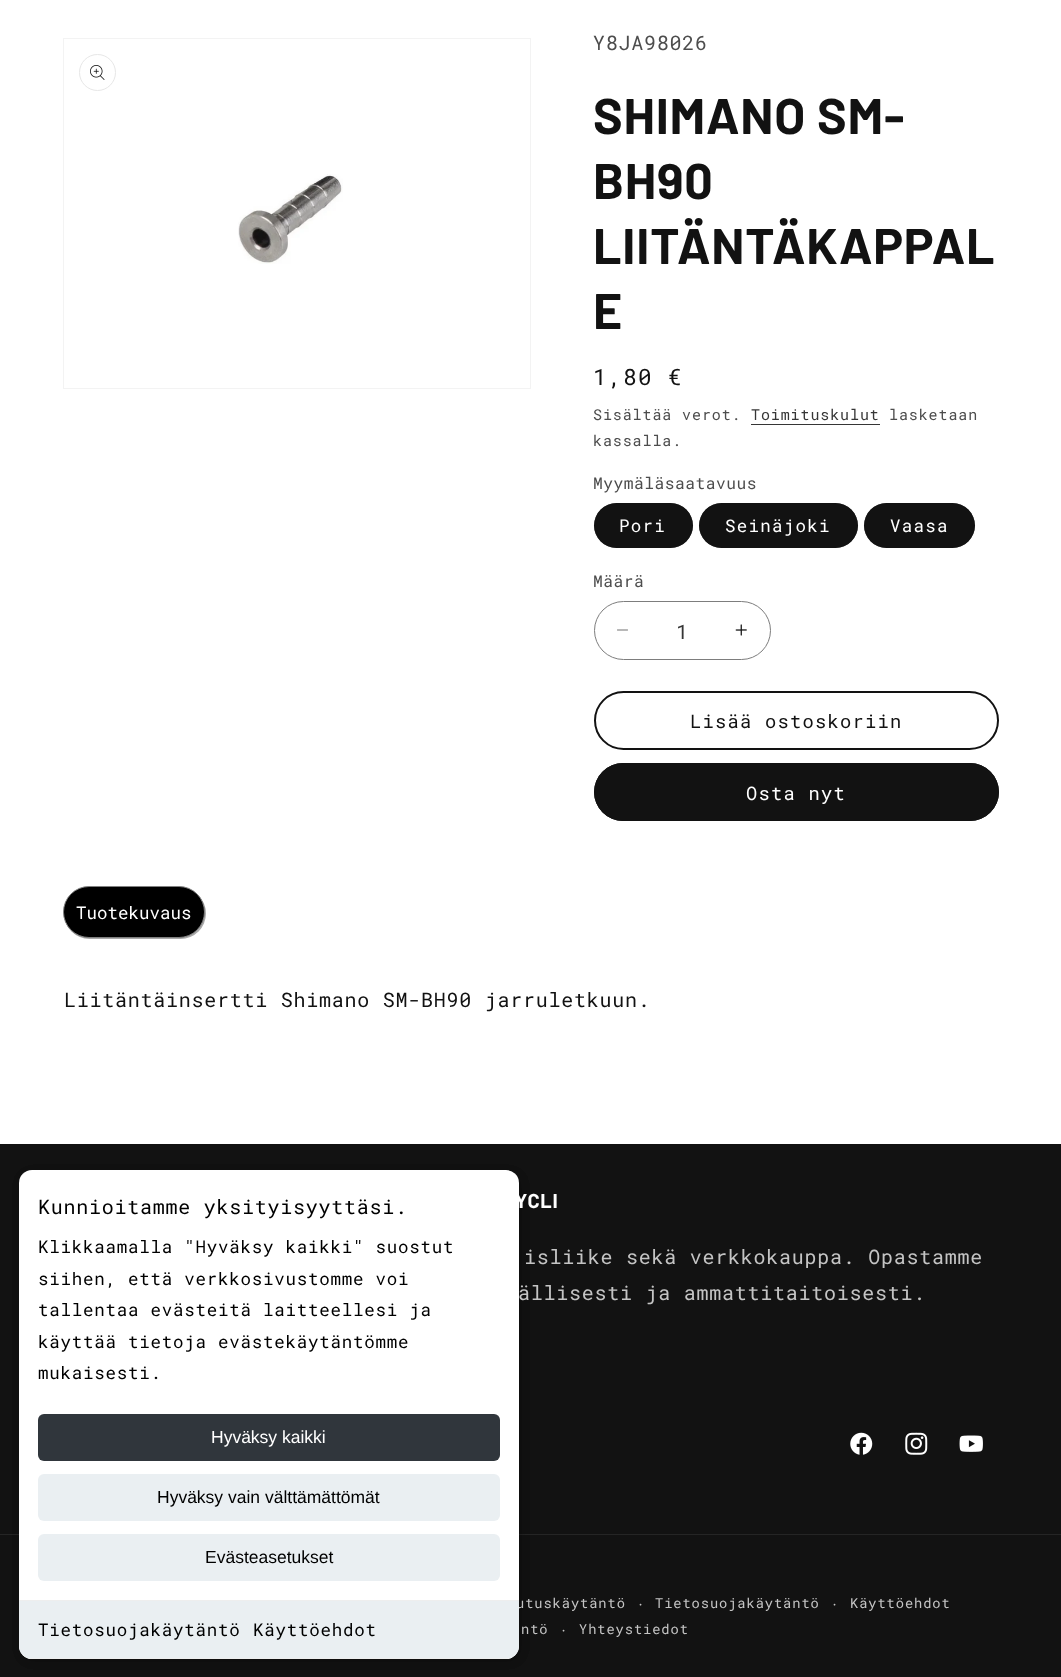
<?xml version="1.0" encoding="UTF-8"?>
<svg xmlns="http://www.w3.org/2000/svg" xmlns:xlink="http://www.w3.org/1999/xlink" width="1061" height="1677">
  <defs>
    <clipPath id="clip1"><rect x="19" y="1170" width="500" height="489" rx="13" /></clipPath>
  </defs>
  <rect width="100%" height="100%" fill="#ffffff" />
  <rect x="63.5" y="38.5" width="467" height="350" fill="none" stroke="#f3f3f3" />
  <circle cx="97.5" cy="72.5" r="18" fill="none" stroke="#e7e7e7" />
  <image x="90" y="65" width="15" height="15" xlink:href="image1.png" />
  <image x="238" y="174" width="105" height="90" xlink:href="image2.png" />
  <rect x="751" y="424" width="129" height="1" fill="#363636" />
  <rect x="594" y="503" width="99" height="45" rx="22.5" fill="#121212" />
  <rect x="594.5" y="503.5" width="98" height="44" rx="22" fill="none" stroke="#121212" stroke-opacity="0.55" />
  <rect x="699" y="503" width="159" height="45" rx="22.5" fill="#121212" />
  <rect x="699.5" y="503.5" width="158" height="44" rx="22" fill="none" stroke="#121212" stroke-opacity="0.55" />
  <rect x="864" y="503" width="111" height="45" rx="22.5" fill="#121212" />
  <rect x="864.5" y="503.5" width="110" height="44" rx="22" fill="none" stroke="#121212" stroke-opacity="0.55" />
  <image x="617" y="629" width="11" height="2" xlink:href="image3.png" />
  <image x="735" y="624" width="12" height="12" xlink:href="image4.png" />
  <rect x="594.5" y="601.5" width="176" height="58" rx="29" fill="none" stroke="#7d7d7d" />
  <rect x="595" y="692" width="403" height="57" rx="28.5" fill="none" stroke="#121212" stroke-width="2" />
  <rect x="594" y="763" width="405" height="58" rx="29" fill="#121212" />
  <rect x="594.5" y="763.5" width="404" height="57" rx="28.5" fill="none" stroke="#121212" />
  <rect x="64" y="888" width="142" height="51" rx="25.5" fill="#a9a9a9" filter="blur(0.5px)" />
  <rect x="63.5" y="886.5" width="141" height="51" rx="25.5" fill="#000000" stroke="#808080" />
  <rect y="1144" width="1061" height="533" fill="#121212" />
  <rect y="1534" width="1061" height="1" fill="#252525" />
  <rect x="21" y="1173" width="500" height="488" rx="13" fill="#000000" fill-opacity="0.15" filter="blur(4px)" />
  <image x="850" y="1432" width="23" height="23" xlink:href="image5.png" />
  <image x="905" y="1432" width="23" height="23" xlink:href="image6.png" />
  <image x="959" y="1435" width="24" height="17" xlink:href="image7.png" />
  <rect x="21" y="1173" width="500" height="488" rx="13" fill="#000000" fill-opacity="0.15" filter="blur(4px)" />
  <text x="593" y="50" style="font-family: roboto mono; font-size: 20px; letter-spacing: 0.75px; fill: #4d4d4d">Y8JA98026</text>
  <text x="593" y="134" style="font-family: barlow; font-size: 50px; font-weight: bold; letter-spacing: 0.75px; fill: #121212">SHIMANO SM-</text>
  <text x="593" y="199" style="font-family: barlow; font-size: 50px; font-weight: bold; letter-spacing: 0.75px; fill: #121212">BH90</text>
  <text x="593" y="264" style="font-family: barlow; font-size: 50px; font-weight: bold; letter-spacing: 0.75px; fill: #121212">LIITÄNTÄKAPPAL</text>
  <text x="593" y="329" style="font-family: barlow; font-size: 50px; font-weight: bold; letter-spacing: 0.75px; fill: #121212">E</text>
  <text x="593" y="385" style="font-family: roboto mono; font-size: 22.5px; letter-spacing: 1.5px; fill: #121212">1,80 €</text>
  <text x="593" y="420" style="font-family: roboto mono; font-size: 15px; letter-spacing: 0.9px; fill: #4d4d4d">Sisältää verot.</text>
  <text x="751" y="420" style="font-family: roboto mono; font-size: 15px; letter-spacing: 0.9px; fill: #363636">Toimituskulut</text>
  <text x="889" y="420" style="font-family: roboto mono; font-size: 15px; letter-spacing: 0.9px; fill: #4d4d4d">lasketaan</text>
  <text x="593" y="446" style="font-family: roboto mono; font-size: 15px; letter-spacing: 0.9px; fill: #4d4d4d">kassalla.</text>
  <text x="593" y="489" style="font-family: roboto mono; font-size: 16.25px; letter-spacing: 0.5px; fill: #4d4d4d">Myymäläsaatavuus</text>
  <text x="619" y="532" style="font-family: roboto mono; font-size: 17.5px; letter-spacing: 1.25px; fill: #ffffff">Pori</text>
  <text x="725" y="532" style="font-family: roboto mono; font-size: 17.5px; letter-spacing: 1.25px; fill: #ffffff">Seinäjoki</text>
  <text x="890" y="532" style="font-family: roboto mono; font-size: 17.5px; letter-spacing: 1.25px; fill: #ffffff">Vaasa</text>
  <text x="593" y="587" style="font-family: roboto mono; font-size: 16.25px; letter-spacing: 0.5px; fill: #4d4d4d">Määrä</text>
  <text x="676" y="639" style="font-family: roboto mono; font-size: 20px; fill: #363636">1</text>
  <text x="690" y="728" style="font-family: roboto mono; font-size: 18.75px; letter-spacing: 1.25px; fill: #121212">Lisää ostoskoriin</text>
  <text x="746" y="800" style="font-family: roboto mono; font-size: 18.75px; letter-spacing: 1.25px; fill: #ffffff">Osta nyt</text>
  <text x="76" y="919" style="font-family: roboto mono; font-size: 17.5px; fill: #ffffff">Tuotekuvaus</text>
  <text x="64" y="1007" style="font-family: roboto mono; font-size: 20px; letter-spacing: 0.75px; fill: #121212">Liitäntäinsertti Shimano SM-BH90 jarruletkuun.</text>
  <text x="515" y="1208" style="font-family: barlow; font-size: 20px; font-weight: bold; letter-spacing: 0.75px; fill: #ffffff">YCLI</text>
  <text x="524" y="1264" style="font-family: roboto mono; font-size: 20px; letter-spacing: 0.75px; fill: #c4c4c4">isliike sekä verkkokauppa. Opastamme</text>
  <text x="518" y="1300" style="font-family: roboto mono; font-size: 20px; letter-spacing: 0.75px; fill: #c4c4c4">ällisesti ja ammattitaitoisesti.</text>
  <text x="516" y="1608" style="font-family: roboto mono; font-size: 13.75px; letter-spacing: 0.9px; fill: #c4c4c4">utuskäytäntö</text>
  <text x="636" y="1610" style="font-family: roboto mono; font-size: 15px; letter-spacing: 0.9px; fill: #c4c4c4">·</text>
  <text x="655" y="1608" style="font-family: roboto mono; font-size: 13.75px; letter-spacing: 0.9px; fill: #c4c4c4">Tietosuojakäytäntö</text>
  <text x="830" y="1610" style="font-family: roboto mono; font-size: 15px; letter-spacing: 0.9px; fill: #c4c4c4">·</text>
  <text x="850" y="1608" style="font-family: roboto mono; font-size: 13.75px; letter-spacing: 0.9px; fill: #c4c4c4">Käyttöehdot</text>
  <text x="521" y="1634" style="font-family: roboto mono; font-size: 13.75px; letter-spacing: 0.9px; fill: #c4c4c4">ntö</text>
  <text x="559" y="1636" style="font-family: roboto mono; font-size: 15px; letter-spacing: 0.9px; fill: #c4c4c4">·</text>
  <text x="579" y="1634" style="font-family: roboto mono; font-size: 13.75px; letter-spacing: 0.9px; fill: #c4c4c4">Yhteystiedot</text>
  <rect x="19" y="1170" width="500" height="489" rx="13" fill="#ffffff" />
  <text x="38" y="1214" style="font-family: roboto mono; font-size: 20px; letter-spacing: 0.75px; fill: #000000">Kunnioitamme yksityisyyttäsi.</text>
  <text x="38" y="1253" style="font-family: roboto mono; font-size: 17.5px; letter-spacing: 0.75px; fill: #000000">Klikkaamalla "Hyväksy kaikki" suostut</text>
  <text x="38" y="1285" style="font-family: roboto mono; font-size: 17.5px; letter-spacing: 0.75px; fill: #000000">siihen, että verkkosivustomme voi</text>
  <text x="38" y="1316" style="font-family: roboto mono; font-size: 17.5px; letter-spacing: 0.75px; fill: #000000">tallentaa evästeitä laitteellesi ja</text>
  <text x="38" y="1348" style="font-family: roboto mono; font-size: 17.5px; letter-spacing: 0.75px; fill: #000000">käyttää tietoja evästekäytäntömme</text>
  <text x="38" y="1379" style="font-family: roboto mono; font-size: 17.5px; letter-spacing: 0.75px; fill: #000000">mukaisesti.</text>
  <rect x="38" y="1414" width="462" height="47" rx="6" fill="#30363c" />
  <text x="211" y="1443" style="font-family: Liberation Sans; font-size: 17.5px; fill: #ffffff">Hyväksy kaikki</text>
  <rect x="38" y="1474" width="462" height="47" rx="6" fill="#eaeff2" />
  <text x="157" y="1503" style="font-family: Liberation Sans; font-size: 17.5px; fill: #000000">Hyväksy vain välttämättömät</text>
  <rect x="38" y="1534" width="462" height="47" rx="6" fill="#eaeff2" />
  <text x="205" y="1563" style="font-family: Liberation Sans; font-size: 17.5px; fill: #000000">Evästeasetukset</text>
  <path d="M 19 1600 h 500 v 46 c 0 7 -6 13 -13 13 h -474 c -7 0 -13 -6 -13 -13 z" fill="#eaeff2" />
  <rect x="19" y="1600" width="500" height="1" fill="#eeeeee" />
  <g clip-path="url(#clip1)">
    <rect x="19" y="1658" width="500" height="1" fill="#eeeeee" />
  </g>
  <text x="38" y="1636" style="font-family: roboto mono; font-size: 17.5px; letter-spacing: 0.75px; fill: #000000">Tietosuojakäytäntö</text>
  <text x="253" y="1636" style="font-family: roboto mono; font-size: 17.5px; letter-spacing: 0.75px; fill: #000000">Käyttöehdot</text>
</svg>
